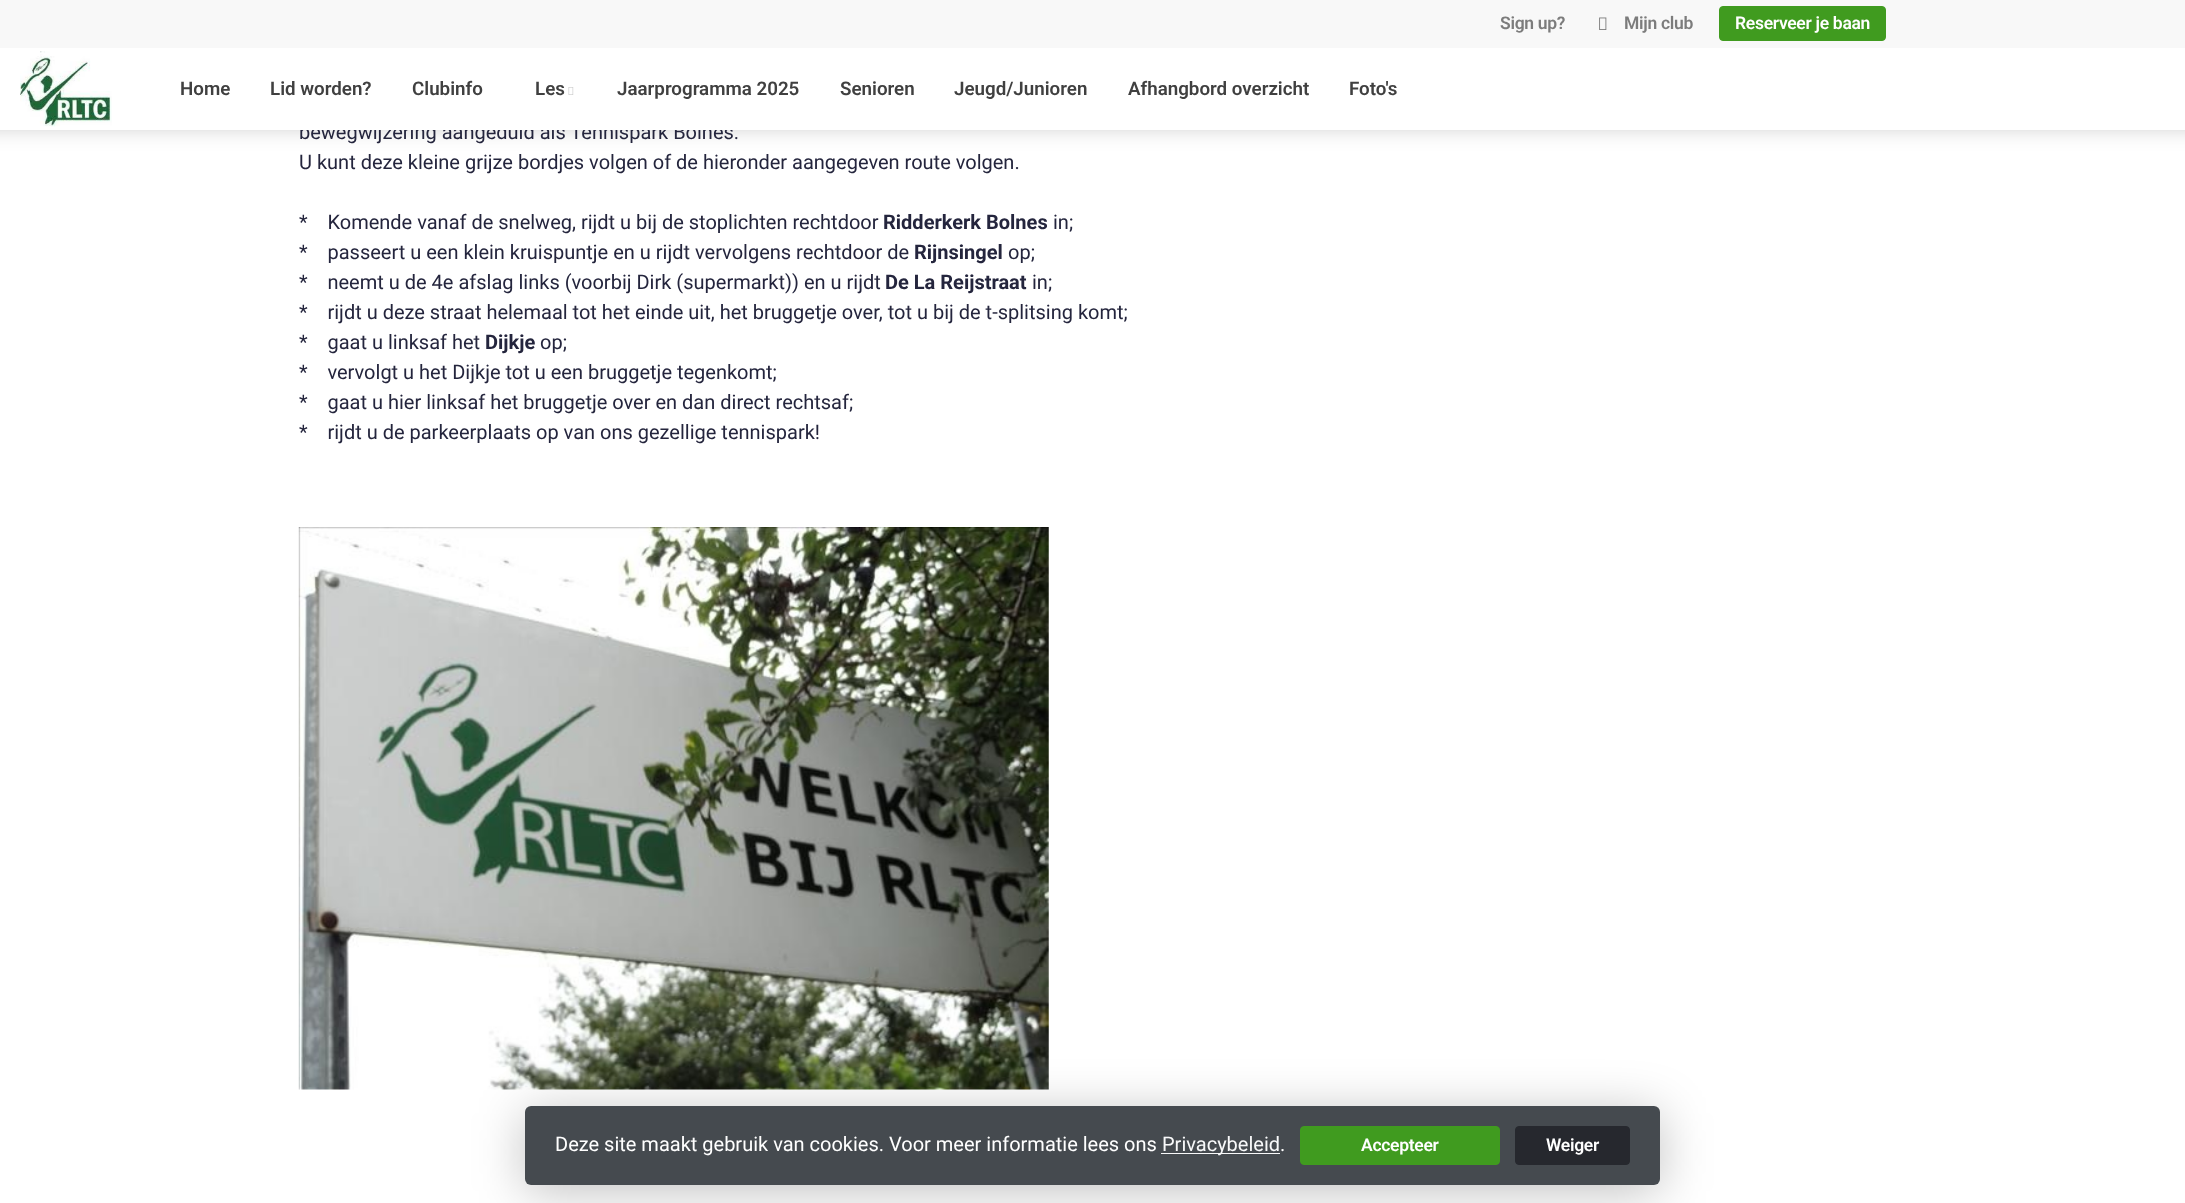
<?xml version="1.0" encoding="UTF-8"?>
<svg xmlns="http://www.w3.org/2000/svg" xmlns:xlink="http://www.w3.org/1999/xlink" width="2185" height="1203">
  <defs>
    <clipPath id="clip1"><path d="M 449 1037 h 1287 v 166 h -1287 z m 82 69 h 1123 c 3.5 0 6 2.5 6 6 v 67 c 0 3.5 -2.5 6 -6 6 h -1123 c -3.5 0 -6 -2.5 -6 -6 v -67 c 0 -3.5 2.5 -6 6 -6 z" clip-rule="evenodd" /></clipPath>
  </defs>
  <rect width="100%" height="100%" fill="#ffffff" />
  <rect x="-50" y="-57" width="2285" height="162" fill="#000000" filter="blur(19px)" />
  <rect width="2185" height="48" fill="#f8f8f8" />
  <image x="1599" y="17" width="8" height="13" xlink:href="image1.png" />
  <rect x="1719.5" y="6.5" width="166" height="34" rx="3.5" fill="#409b1f" stroke="#409b1f" />
  <image x="298" y="527" width="751" height="563" xlink:href="image4.png" />
  <g clip-path="url(#clip1)">
    <rect x="525" y="1113" width="1135" height="78" rx="6" fill="#000000" fill-opacity="0.25" filter="blur(25px)" />
  </g>
  <rect x="525" y="1106" width="1135" height="79" rx="6" fill="#242a30" fill-opacity="0.85" />
  <rect x="1161" y="1153" width="119" height="1" fill="#f8f9fa" />
  <rect x="1300.5" y="1126.5" width="199" height="38" rx="3.5" fill="#409b1f" stroke="#409b1f" />
  <rect x="1515.5" y="1126.5" width="114" height="38" rx="3.5" fill="#26282e" stroke="#26282e" />
  <text x="1500" y="29" style="font-family: Roboto; font-size: 17.5px; font-weight: 600; letter-spacing: -0.3px; fill: #7c7c7c">Sign up?</text>
  <text x="1624" y="29" style="font-family: Roboto; font-size: 17.5px; font-weight: 600; letter-spacing: -0.3px; fill: #7c7c7c">Mijn club</text>
  <text x="1735" y="29" style="font-family: Roboto; font-size: 17.5px; font-weight: 600; letter-spacing: -0.3px; fill: #ffffff">Reserveer je baan</text>
  <text x="299" y="139" style="font-family: Roboto; font-size: 20px; fill: #24253d">bewegwijzering aangeduid als Tennispark Bolnes.</text>
  <rect y="48" width="2185" height="82" fill="#ffffff" />
  <image x="568" y="87" width="6" height="8" xlink:href="image3.png" />
  <text x="535" y="95" style="font-family: Roboto; font-size: 18.75px; font-weight: 600; fill: #404040">Les</text>
  <text x="412" y="95" style="font-family: Roboto; font-size: 18.75px; font-weight: 600; fill: #404040">Clubinfo</text>
  <text x="1349" y="95" style="font-family: Roboto; font-size: 18.75px; font-weight: 600; fill: #404040">Foto's</text>
  <text x="1128" y="95" style="font-family: Roboto; font-size: 18.75px; font-weight: 600; fill: #404040">Afhangbord overzicht</text>
  <text x="954" y="95" style="font-family: Roboto; font-size: 18.75px; font-weight: 600; fill: #404040">Jeugd/Junioren</text>
  <text x="840" y="95" style="font-family: Roboto; font-size: 18.75px; font-weight: 600; fill: #404040">Senioren</text>
  <text x="617" y="95" style="font-family: Roboto; font-size: 18.75px; font-weight: 600; fill: #404040">Jaarprogramma 2025</text>
  <text x="270" y="95" style="font-family: Roboto; font-size: 18.75px; font-weight: 600; fill: #404040">Lid worden?</text>
  <text x="180" y="95" style="font-family: Roboto; font-size: 18.75px; font-weight: 600; fill: #404040">Home</text>
  <image x="20" y="51" width="92" height="76" xlink:href="image2.png" />
  <text x="299" y="169" style="font-family: Roboto; font-size: 20px; fill: #24253d">U kunt deze kleine grijze bordjes volgen of de hieronder aangegeven route volgen.</text>
  <text x="299" y="229" style="font-family: Roboto; font-size: 20px; fill: #24253d" xml:space="preserve">*    Komende vanaf de snelweg, rijdt u bij de stoplichten rechtdoor</text>
  <text x="883" y="229" style="font-family: Roboto; font-size: 20px; font-weight: bold; fill: #24253d">Ridderkerk Bolnes</text>
  <text x="1053" y="229" style="font-family: Roboto; font-size: 20px; fill: #24253d">in;</text>
  <text x="299" y="259" style="font-family: Roboto; font-size: 20px; fill: #24253d" xml:space="preserve">*    passeert u een klein kruispuntje en u rijdt vervolgens rechtdoor de</text>
  <text x="914" y="259" style="font-family: Roboto; font-size: 20px; font-weight: bold; fill: #24253d">Rijnsingel</text>
  <text x="1008" y="259" style="font-family: Roboto; font-size: 20px; fill: #24253d">op;</text>
  <text x="299" y="289" style="font-family: Roboto; font-size: 20px; fill: #24253d" xml:space="preserve">*    neemt u de 4e afslag links (voorbij Dirk (supermarkt)) en u rijdt</text>
  <text x="885" y="289" style="font-family: Roboto; font-size: 20px; font-weight: bold; fill: #24253d">De La Reijstraat</text>
  <text x="1032" y="289" style="font-family: Roboto; font-size: 20px; fill: #24253d">in;</text>
  <text x="299" y="319" style="font-family: Roboto; font-size: 20px; fill: #24253d" xml:space="preserve">*    rijdt u deze straat helemaal tot het einde uit, het bruggetje over, tot u bij de t-splitsing komt;</text>
  <text x="299" y="349" style="font-family: Roboto; font-size: 20px; fill: #24253d" xml:space="preserve">*    gaat u linksaf het</text>
  <text x="485" y="349" style="font-family: Roboto; font-size: 20px; font-weight: bold; fill: #24253d">Dijkje</text>
  <text x="540" y="349" style="font-family: Roboto; font-size: 20px; fill: #24253d">op;</text>
  <text x="299" y="379" style="font-family: Roboto; font-size: 20px; fill: #24253d" xml:space="preserve">*    vervolgt u het Dijkje tot u een bruggetje tegenkomt;</text>
  <text x="299" y="409" style="font-family: Roboto; font-size: 20px; fill: #24253d" xml:space="preserve">*    gaat u hier linksaf het bruggetje over en dan direct rechtsaf;</text>
  <text x="299" y="439" style="font-family: Roboto; font-size: 20px; fill: #24253d" xml:space="preserve">*    rijdt u de parkeerplaats op van ons gezellige tennispark!</text>
  <text x="555" y="1151" style="font-family: Roboto; font-size: 20px; fill: #ffffff">Deze site maakt gebruik van cookies. Voor meer informatie lees ons</text>
  <text x="1162" y="1151" style="font-family: Roboto; font-size: 20px; fill: #f8f9fa">Privacybeleid</text>
  <text x="1280" y="1151" style="font-family: Roboto; font-size: 20px; fill: #ffffff">.</text>
  <text x="1361" y="1151" style="font-family: Roboto; font-size: 17.5px; font-weight: 600; letter-spacing: -0.3px; fill: #ffffff">Accepteer</text>
  <text x="1546" y="1151" style="font-family: Roboto; font-size: 17.5px; font-weight: 600; letter-spacing: -0.3px; fill: #ffffff">Weiger</text>
</svg>
